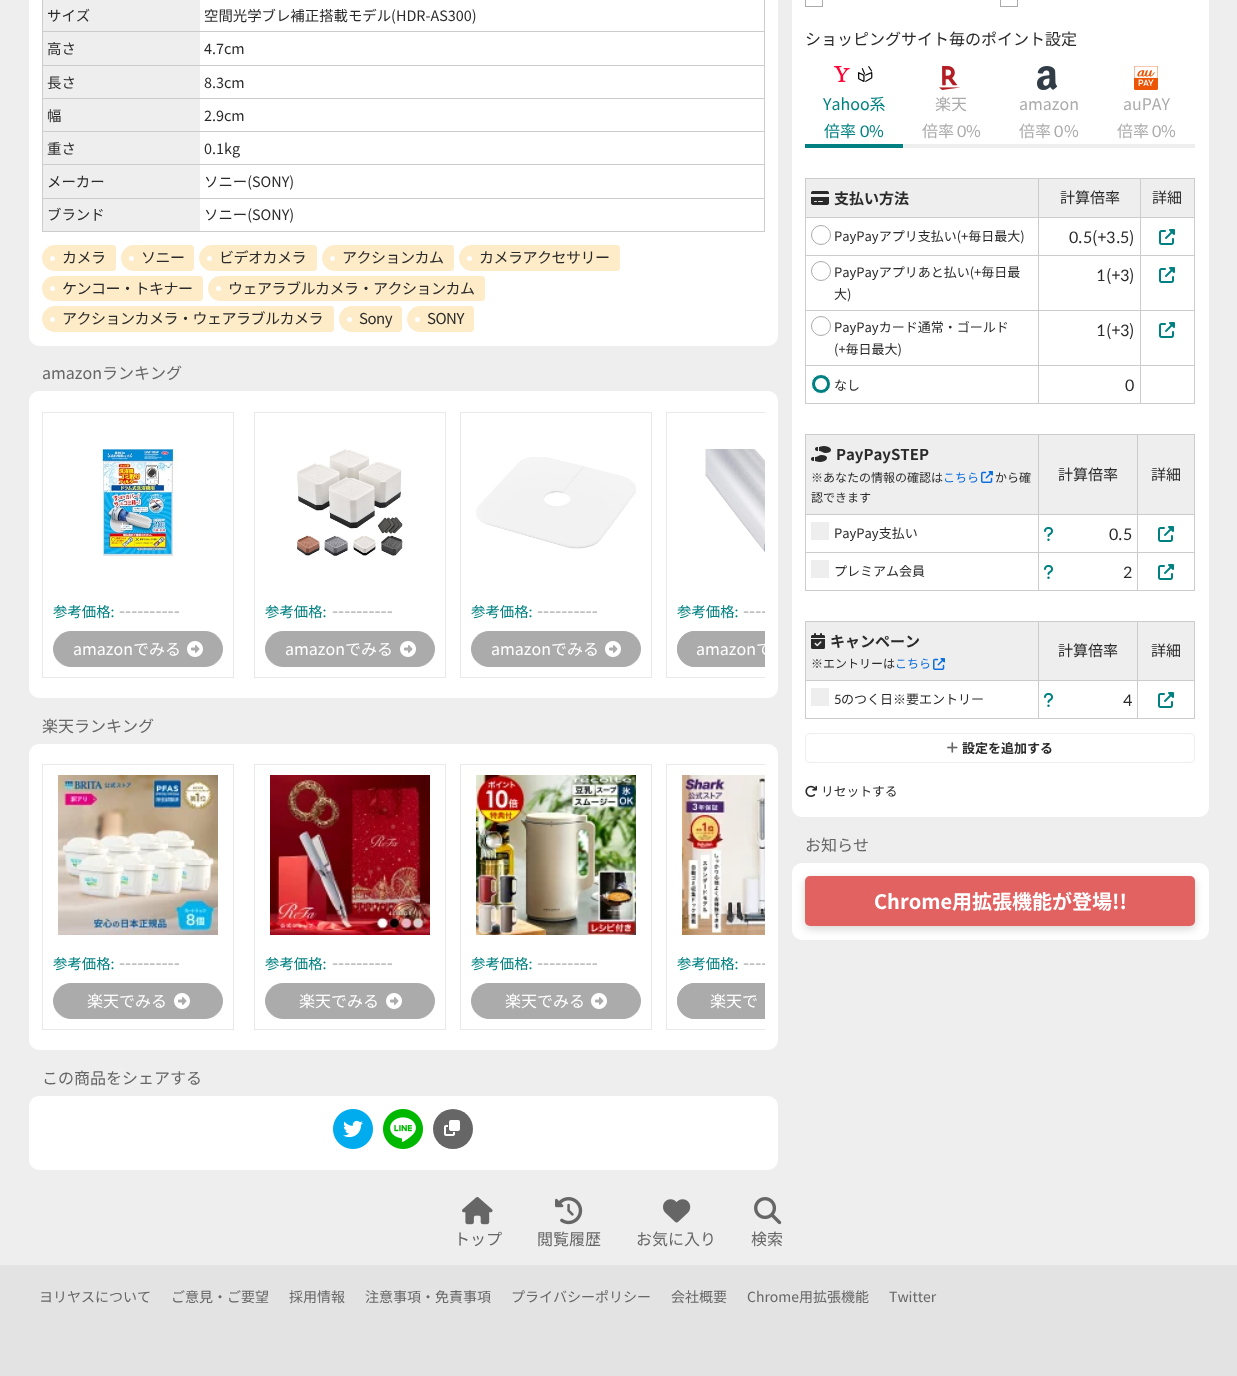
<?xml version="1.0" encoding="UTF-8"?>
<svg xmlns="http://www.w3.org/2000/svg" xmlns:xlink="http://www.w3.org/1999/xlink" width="1237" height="1376">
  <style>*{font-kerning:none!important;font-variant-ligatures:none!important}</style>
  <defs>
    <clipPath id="clip1"><rect x="42" y="405" width="723" height="279" /></clipPath>
    <clipPath id="clip2"><rect x="42" y="757" width="723" height="280" /></clipPath>
  </defs>
  <rect width="100%" height="100%" fill="#eeeeee" />
  <rect x="29" y="-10" width="749" height="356" rx="10" fill="#ffffff" />
  <rect x="764" width="1" height="232" fill="#cccccc" />
  <rect x="42" y="231" width="723" height="1" fill="#cccccc" />
  <rect x="42" width="1" height="232" fill="#cccccc" />
  <rect x="43" width="157" height="31" fill="#eeeeee" />
  <rect x="42" y="31" width="723" height="1" fill="#cccccc" />
  <rect x="43" y="32" width="157" height="33" fill="#eeeeee" />
  <rect x="42" y="65" width="723" height="1" fill="#cccccc" />
  <rect x="43" y="66" width="157" height="32" fill="#eeeeee" />
  <rect x="42" y="98" width="723" height="1" fill="#cccccc" />
  <rect x="43" y="99" width="157" height="32" fill="#eeeeee" />
  <rect x="42" y="131" width="723" height="1" fill="#cccccc" />
  <rect x="43" y="132" width="157" height="32" fill="#eeeeee" />
  <rect x="42" y="164" width="723" height="1" fill="#cccccc" />
  <rect x="43" y="165" width="157" height="33" fill="#eeeeee" />
  <rect x="42" y="198" width="723" height="1" fill="#cccccc" />
  <rect x="43" y="199" width="157" height="32" fill="#eeeeee" />
  <path d="M 55 245 h 58 c 1.5 0 3 1.5 3 3 v 20 c 0 1.5 -1.5 3 -3 3 h -58 c -7 0 -13 -6 -13 -13 c 0 -7 6 -13 13 -13 z" fill="#feebc8" />
  <circle cx="52.5" cy="258.5" r="2.5" fill="#ffffff" />
  <path d="M 134 245 h 57 c 1.5 0 3 1.5 3 3 v 20 c 0 1.5 -1.5 3 -3 3 h -57 c -7 0 -13 -6 -13 -13 c 0 -7 6 -13 13 -13 z" fill="#feebc8" />
  <circle cx="131.5" cy="258.5" r="2.5" fill="#ffffff" />
  <path d="M 212 245 h 102 c 1.5 0 3 1.5 3 3 v 20 c 0 1.5 -1.5 3 -3 3 h -102 c -7 0 -13 -6 -13 -13 c 0 -7 6 -13 13 -13 z" fill="#feebc8" />
  <circle cx="209.5" cy="258.5" r="2.5" fill="#ffffff" />
  <path d="M 335 245 h 116 c 1.5 0 3 1.5 3 3 v 20 c 0 1.5 -1.5 3 -3 3 h -116 c -7 0 -13 -6 -13 -13 c 0 -7 6 -13 13 -13 z" fill="#feebc8" />
  <circle cx="332.5" cy="258.5" r="2.5" fill="#ffffff" />
  <path d="M 472 245 h 145 c 1.5 0 3 1.5 3 3 v 20 c 0 1.5 -1.5 3 -3 3 h -145 c -7 0 -13 -6 -13 -13 c 0 -7 6 -13 13 -13 z" fill="#feebc8" />
  <circle cx="469.5" cy="258.5" r="2.5" fill="#ffffff" />
  <path d="M 54.5 276 h 145.5 c 1.5 0 3 1.5 3 3 v 19 c 0 1.5 -1.5 3 -3 3 h -145.5 c -7 0 -12.5 -5.5 -12.5 -12.5 c 0 -7 5.5 -12.5 12.5 -12.5 z" fill="#feebc8" />
  <circle cx="52.5" cy="288.5" r="2.5" fill="#ffffff" />
  <path d="M 220.5 276 h 261.5 c 1.5 0 3 1.5 3 3 v 19 c 0 1.5 -1.5 3 -3 3 h -261.5 c -7 0 -12.5 -5.5 -12.5 -12.5 c 0 -7 5.5 -12.5 12.5 -12.5 z" fill="#feebc8" />
  <circle cx="218.5" cy="288.5" r="2.5" fill="#ffffff" />
  <path d="M 55 306 h 276 c 1.5 0 3 1.5 3 3 v 20 c 0 1.5 -1.5 3 -3 3 h -276 c -7 0 -13 -6 -13 -13 c 0 -7 6 -13 13 -13 z" fill="#feebc8" />
  <circle cx="52.5" cy="319.5" r="2.5" fill="#ffffff" />
  <path d="M 352 306 h 47 c 1.5 0 3 1.5 3 3 v 20 c 0 1.5 -1.5 3 -3 3 h -47 c -7 0 -13 -6 -13 -13 c 0 -7 6 -13 13 -13 z" fill="#feebc8" />
  <circle cx="349.5" cy="319.5" r="2.5" fill="#ffffff" />
  <path d="M 420 306 h 51 c 1.5 0 3 1.5 3 3 v 20 c 0 1.5 -1.5 3 -3 3 h -51 c -7 0 -13 -6 -13 -13 c 0 -7 6 -13 13 -13 z" fill="#feebc8" />
  <circle cx="417.5" cy="319.5" r="2.5" fill="#ffffff" />
  <rect x="29" y="391" width="749" height="307" rx="10" fill="#ffffff" />
  <rect x="42.5" y="412.5" width="191" height="265" fill="none" stroke="#e9e9e9" />
  <image x="100" y="449" width="78" height="107" xlink:href="image1.png" />
  <rect x="53.5" y="631.5" width="169" height="35" rx="17.5" fill="#ababab" stroke="#ababab" />
  <image x="187" y="641" width="16" height="16" xlink:href="image2.png" />
  <rect x="254.5" y="412.5" width="191" height="265" fill="none" stroke="#e9e9e9" />
  <image x="297" y="449" width="106" height="107" xlink:href="image3.png" />
  <rect x="265.5" y="631.5" width="169" height="35" rx="17.5" fill="#ababab" stroke="#ababab" />
  <image x="400" y="641" width="16" height="16" xlink:href="image2.png" />
  <rect x="460.5" y="412.5" width="191" height="265" fill="none" stroke="#e9e9e9" />
  <image x="476" y="457" width="160" height="92" xlink:href="image4.png" />
  <rect x="471.5" y="631.5" width="169" height="35" rx="17.5" fill="#ababab" stroke="#ababab" />
  <image x="605" y="641" width="16" height="16" xlink:href="image2.png" />
  <g clip-path="url(#clip1)">
    <rect x="666.5" y="412.5" width="191" height="265" fill="none" stroke="#e9e9e9" />
  </g>
  <image x="705" y="449" width="60" height="104" xlink:href="image5.png" />
  <path d="M 695 631 h 70 v 36 h -70 c -10 0 -18 -8 -18 -18 c 0 -10 8 -18 18 -18 z" fill="#ababab" />
  <g clip-path="url(#clip1)">
    <rect x="677.5" y="631.5" width="169" height="35" rx="17.5" fill="none" stroke="#ababab" />
  </g>
  <rect x="29" y="744" width="749" height="306" rx="10" fill="#ffffff" />
  <rect x="42.5" y="764.5" width="191" height="265" fill="none" stroke="#e9e9e9" />
  <image x="58" y="775" width="160" height="160" xlink:href="image6.png" />
  <rect x="53.5" y="983.5" width="169" height="35" rx="17.5" fill="#ababab" stroke="#ababab" />
  <image x="174" y="993" width="16" height="16" xlink:href="image2.png" />
  <rect x="254.5" y="764.5" width="191" height="265" fill="none" stroke="#e9e9e9" />
  <image x="270" y="775" width="160" height="160" xlink:href="image7.png" />
  <rect x="265.5" y="983.5" width="169" height="35" rx="17.5" fill="#ababab" stroke="#ababab" />
  <image x="386" y="993" width="16" height="16" xlink:href="image2.png" />
  <rect x="460.5" y="764.5" width="191" height="265" fill="none" stroke="#e9e9e9" />
  <image x="476" y="775" width="160" height="160" xlink:href="image8.png" />
  <rect x="471.5" y="983.5" width="169" height="35" rx="17.5" fill="#ababab" stroke="#ababab" />
  <image x="591" y="993" width="16" height="16" xlink:href="image2.png" />
  <g clip-path="url(#clip2)">
    <rect x="666.5" y="764.5" width="191" height="265" fill="none" stroke="#e9e9e9" />
  </g>
  <image x="682" y="775" width="83" height="160" xlink:href="image9.png" />
  <path d="M 695 983 h 70 v 36 h -70 c -10 0 -18 -8 -18 -18 c 0 -10 8 -18 18 -18 z" fill="#ababab" />
  <g clip-path="url(#clip2)">
    <rect x="677.5" y="983.5" width="169" height="35" rx="17.5" fill="none" stroke="#ababab" />
  </g>
  <rect x="29" y="1096" width="749" height="74" rx="10" fill="#ffffff" />
  <image x="333" y="1109" width="40" height="40" xlink:href="image10.png" />
  <image x="383" y="1109" width="40" height="40" xlink:href="image11.png" />
  <circle cx="453" cy="1129" r="20" fill="#666666" />
  <image x="444" y="1120" width="16" height="16" xlink:href="image12.png" />
  <rect x="792" y="-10" width="417" height="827" rx="10" fill="#ffffff" />
  <rect x="805.5" y="-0.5" width="17" height="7" fill="none" stroke="#ababab" />
  <rect x="1000.5" y="-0.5" width="17" height="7" fill="none" stroke="#ababab" />
  <rect x="805" y="144" width="98" height="4" fill="#008080" />
  <image x="834" y="66" width="16" height="16" xlink:href="image13.png" />
  <image x="858" y="66" width="15" height="16" xlink:href="image14.png" />
  <rect x="903" y="144" width="292" height="4" fill="#eeeeee" />
  <image x="939" y="66" width="21" height="24" xlink:href="image15.png" />
  <image x="1037" y="66" width="21" height="24" xlink:href="image16.png" />
  <image x="1134" y="66" width="24" height="24" xlink:href="image17.png" />
  <rect x="806" y="179" width="388" height="38" fill="#eeeeee" />
  <rect x="1140" y="178" width="55" height="1" fill="#cccccc" />
  <rect x="1140" y="217" width="55" height="1" fill="#cccccc" />
  <rect x="1140" y="255" width="55" height="1" fill="#cccccc" />
  <rect x="1140" y="310" width="55" height="1" fill="#cccccc" />
  <rect x="1140" y="365" width="55" height="1" fill="#cccccc" />
  <rect x="1194" y="365" width="1" height="39" fill="#cccccc" />
  <rect x="1140" y="403" width="55" height="1" fill="#cccccc" />
  <rect x="1140" y="365" width="1" height="39" fill="#cccccc" />
  <rect x="1038" y="365" width="103" height="1" fill="#cccccc" />
  <rect x="1140" y="310" width="1" height="56" fill="#cccccc" />
  <rect x="1038" y="310" width="103" height="1" fill="#cccccc" />
  <rect x="1140" y="255" width="1" height="56" fill="#cccccc" />
  <rect x="1038" y="255" width="103" height="1" fill="#cccccc" />
  <rect x="1140" y="217" width="1" height="39" fill="#cccccc" />
  <rect x="1038" y="217" width="103" height="1" fill="#cccccc" />
  <rect x="1140" y="178" width="1" height="40" fill="#cccccc" />
  <rect x="1038" y="178" width="103" height="1" fill="#cccccc" />
  <rect x="1038" y="403" width="103" height="1" fill="#cccccc" />
  <rect x="1038" y="365" width="1" height="39" fill="#cccccc" />
  <rect x="805" y="365" width="234" height="1" fill="#cccccc" />
  <rect x="1038" y="310" width="1" height="56" fill="#cccccc" />
  <rect x="805" y="310" width="234" height="1" fill="#cccccc" />
  <rect x="1038" y="255" width="1" height="56" fill="#cccccc" />
  <rect x="805" y="255" width="234" height="1" fill="#cccccc" />
  <rect x="1038" y="217" width="1" height="39" fill="#cccccc" />
  <rect x="805" y="217" width="234" height="1" fill="#cccccc" />
  <rect x="1038" y="178" width="1" height="40" fill="#cccccc" />
  <rect x="805" y="178" width="234" height="1" fill="#cccccc" />
  <rect x="805" y="403" width="234" height="1" fill="#cccccc" />
  <rect x="805" y="365" width="1" height="39" fill="#cccccc" />
  <rect x="805" y="310" width="1" height="56" fill="#cccccc" />
  <rect x="805" y="255" width="1" height="56" fill="#cccccc" />
  <rect x="805" y="217" width="1" height="39" fill="#cccccc" />
  <rect x="805" y="178" width="1" height="40" fill="#cccccc" />
  <image x="811" y="191" width="18" height="14" xlink:href="image18.png" />
  <rect x="1194" y="310" width="1" height="56" fill="#cccccc" />
  <rect x="1194" y="255" width="1" height="56" fill="#cccccc" />
  <rect x="1194" y="217" width="1" height="39" fill="#cccccc" />
  <rect x="1194" y="178" width="1" height="40" fill="#cccccc" />
  <circle cx="821" cy="235" r="9.5" fill="none" stroke="#ababab" />
  <image x="1159" y="229" width="16" height="16" xlink:href="image19.png" />
  <circle cx="821" cy="271" r="9.5" fill="none" stroke="#ababab" />
  <image x="1159" y="267" width="16" height="16" xlink:href="image19.png" />
  <circle cx="821" cy="326" r="9.5" fill="none" stroke="#ababab" />
  <image x="1159" y="322" width="16" height="16" xlink:href="image19.png" />
  <circle cx="821" cy="384" r="9.5" fill="#008080" stroke="#ffffff" />
  <circle cx="821" cy="384" r="6" fill="#ffffff" />
  <rect x="806" y="435" width="388" height="79" fill="#eeeeee" />
  <rect x="1137" y="434" width="58" height="1" fill="#cccccc" />
  <rect x="1137" y="514" width="58" height="1" fill="#cccccc" />
  <rect x="1137" y="552" width="58" height="1" fill="#cccccc" />
  <rect x="1194" y="552" width="1" height="39" fill="#cccccc" />
  <rect x="1137" y="590" width="58" height="1" fill="#cccccc" />
  <rect x="1137" y="552" width="1" height="39" fill="#cccccc" />
  <rect x="1038" y="552" width="100" height="1" fill="#cccccc" />
  <rect x="1137" y="514" width="1" height="39" fill="#cccccc" />
  <rect x="1038" y="514" width="100" height="1" fill="#cccccc" />
  <rect x="1137" y="434" width="1" height="81" fill="#cccccc" />
  <rect x="1038" y="434" width="100" height="1" fill="#cccccc" />
  <rect x="1038" y="590" width="100" height="1" fill="#cccccc" />
  <rect x="1038" y="552" width="1" height="39" fill="#cccccc" />
  <rect x="805" y="552" width="234" height="1" fill="#cccccc" />
  <rect x="1038" y="514" width="1" height="39" fill="#cccccc" />
  <rect x="805" y="514" width="234" height="1" fill="#cccccc" />
  <rect x="1038" y="434" width="1" height="81" fill="#cccccc" />
  <rect x="805" y="434" width="234" height="1" fill="#cccccc" />
  <rect x="805" y="590" width="234" height="1" fill="#cccccc" />
  <rect x="805" y="552" width="1" height="39" fill="#cccccc" />
  <rect x="805" y="514" width="1" height="39" fill="#cccccc" />
  <rect x="805" y="434" width="1" height="81" fill="#cccccc" />
  <image x="811" y="446" width="20" height="16" xlink:href="image20.png" />
  <image x="981" y="471" width="12" height="12" xlink:href="image21.png" />
  <rect x="1194" y="514" width="1" height="39" fill="#cccccc" />
  <rect x="1194" y="434" width="1" height="81" fill="#cccccc" />
  <rect x="811" y="522" width="18" height="18" fill="#eeeeee" />
  <image x="1044" y="527" width="9" height="14" xlink:href="image22.png" />
  <image x="1158" y="526" width="16" height="16" xlink:href="image19.png" />
  <rect x="811" y="560" width="18" height="18" fill="#eeeeee" />
  <image x="1044" y="565" width="9" height="14" xlink:href="image22.png" />
  <image x="1158" y="564" width="16" height="16" xlink:href="image19.png" />
  <rect x="806" y="622" width="388" height="58" fill="#eeeeee" />
  <rect x="1137" y="621" width="58" height="1" fill="#cccccc" />
  <rect x="1137" y="680" width="58" height="1" fill="#cccccc" />
  <rect x="1194" y="680" width="1" height="39" fill="#cccccc" />
  <rect x="1137" y="718" width="58" height="1" fill="#cccccc" />
  <rect x="1137" y="680" width="1" height="39" fill="#cccccc" />
  <rect x="1038" y="680" width="100" height="1" fill="#cccccc" />
  <rect x="1137" y="621" width="1" height="60" fill="#cccccc" />
  <rect x="1038" y="621" width="100" height="1" fill="#cccccc" />
  <rect x="1038" y="718" width="100" height="1" fill="#cccccc" />
  <rect x="1038" y="680" width="1" height="39" fill="#cccccc" />
  <rect x="805" y="680" width="234" height="1" fill="#cccccc" />
  <rect x="1038" y="621" width="1" height="60" fill="#cccccc" />
  <rect x="805" y="621" width="234" height="1" fill="#cccccc" />
  <rect x="805" y="718" width="234" height="1" fill="#cccccc" />
  <rect x="805" y="680" width="1" height="39" fill="#cccccc" />
  <rect x="805" y="621" width="1" height="60" fill="#cccccc" />
  <image x="811" y="633" width="14" height="16" xlink:href="image23.png" />
  <image x="933" y="658" width="12" height="12" xlink:href="image21.png" />
  <rect x="1194" y="621" width="1" height="60" fill="#cccccc" />
  <rect x="811" y="688" width="18" height="18" fill="#eeeeee" />
  <image x="1044" y="693" width="9" height="14" xlink:href="image22.png" />
  <image x="1158" y="692" width="16" height="16" xlink:href="image19.png" />
  <rect x="805.5" y="733.5" width="389" height="29" rx="4.5" fill="none" stroke="#eeeeee" />
  <image x="947" y="742" width="11" height="11" xlink:href="image24.png" />
  <image x="805" y="785" width="12" height="12" xlink:href="image25.png" />
  <rect x="792" y="863" width="417" height="77" rx="10" fill="#ffffff" />
  <rect x="805" y="879" width="390" height="50" rx="5" fill="#000000" fill-opacity="0.16" filter="blur(4px)" />
  <rect x="805" y="876" width="390" height="50" rx="5" fill="#e26161" />
  <image x="462" y="1197" width="31" height="28" xlink:href="image26.png" />
  <image x="555" y="1197" width="28" height="28" xlink:href="image27.png" />
  <image x="663" y="1199" width="28" height="24" xlink:href="image28.png" />
  <image x="754" y="1197" width="28" height="28" xlink:href="image29.png" />
  <rect y="1265" width="1237" height="111" fill="#e3e3e3" />
  <text x="47" y="21" style="font-family: Noto Sans JP; font-size: 14.4px; fill: #2a2a2a">サイズ</text>
  <text x="204" y="21" style="font-family: Noto Sans JP; font-size: 14.4px; fill: #2a2a2a">空間光学ブレ補正搭載モデル(HDR-AS300)</text>
  <text x="47" y="54" style="font-family: Noto Sans JP; font-size: 14.4px; fill: #2a2a2a">高さ</text>
  <text x="204" y="54" style="font-family: Noto Sans JP; font-size: 14.4px; fill: #2a2a2a">4.7cm</text>
  <text x="47" y="88" style="font-family: Noto Sans JP; font-size: 14.4px; fill: #2a2a2a">長さ</text>
  <text x="204" y="88" style="font-family: Noto Sans JP; font-size: 14.4px; fill: #2a2a2a">8.3cm</text>
  <text x="47" y="121" style="font-family: Noto Sans JP; font-size: 14.4px; fill: #2a2a2a">幅</text>
  <text x="204" y="121" style="font-family: Noto Sans JP; font-size: 14.4px; fill: #2a2a2a">2.9cm</text>
  <text x="47" y="154" style="font-family: Noto Sans JP; font-size: 14.4px; fill: #2a2a2a">重さ</text>
  <text x="204" y="154" style="font-family: Noto Sans JP; font-size: 14.4px; fill: #2a2a2a">0.1kg</text>
  <text x="47" y="187" style="font-family: Noto Sans JP; font-size: 14.4px; fill: #2a2a2a">メーカー</text>
  <text x="204" y="187" style="font-family: Noto Sans JP; font-size: 14.4px; fill: #2a2a2a">ソニー(SONY)</text>
  <text x="47" y="220" style="font-family: Noto Sans JP; font-size: 14.4px; fill: #2a2a2a">ブランド</text>
  <text x="204" y="220" style="font-family: Noto Sans JP; font-size: 14.4px; fill: #2a2a2a">ソニー(SONY)</text>
  <text x="62" y="263" style="font-family: Noto Sans JP; font-size: 15px; letter-spacing: -0.5px; fill: #2a2a2a">カメラ</text>
  <text x="141" y="263" style="font-family: Noto Sans JP; font-size: 15px; letter-spacing: -0.5px; fill: #2a2a2a">ソニー</text>
  <text x="219" y="263" style="font-family: Noto Sans JP; font-size: 15px; letter-spacing: -0.5px; fill: #2a2a2a">ビデオカメラ</text>
  <text x="342" y="263" style="font-family: Noto Sans JP; font-size: 15px; letter-spacing: -0.5px; fill: #2a2a2a">アクションカム</text>
  <text x="479" y="263" style="font-family: Noto Sans JP; font-size: 15px; letter-spacing: -0.5px; fill: #2a2a2a">カメラアクセサリー</text>
  <text x="62" y="294" style="font-family: Noto Sans JP; font-size: 15px; letter-spacing: -0.5px; fill: #2a2a2a">ケンコー・トキナー</text>
  <text x="228" y="294" style="font-family: Noto Sans JP; font-size: 15px; letter-spacing: -0.5px; fill: #2a2a2a">ウェアラブルカメラ・アクションカム</text>
  <text x="62" y="324" style="font-family: Noto Sans JP; font-size: 15px; letter-spacing: -0.5px; fill: #2a2a2a">アクションカメラ・ウェアラブルカメラ</text>
  <text x="359" y="324" style="font-family: Noto Sans JP; font-size: 15px; letter-spacing: -0.5px; fill: #2a2a2a">Sony</text>
  <text x="427" y="324" style="font-family: Noto Sans JP; font-size: 15px; letter-spacing: -0.5px; fill: #2a2a2a">SONY</text>
  <text x="42" y="379" style="font-family: Noto Sans JP; font-size: 16px; fill: #666666">amazonランキング</text>
  <text x="53" y="617" style="font-family: Noto Sans JP; font-size: 14.4px; fill: #008080">参考価格:</text>
  <text x="119" y="617" style="font-family: Noto Sans JP; font-size: 17.5px; fill: #ababab">----------</text>
  <text x="73" y="655" style="font-family: Noto Sans JP; font-size: 16px; fill: #ffffff">amazonでみる</text>
  <text x="265" y="617" style="font-family: Noto Sans JP; font-size: 14.4px; fill: #008080">参考価格:</text>
  <text x="332" y="617" style="font-family: Noto Sans JP; font-size: 17.5px; fill: #ababab">----------</text>
  <text x="285" y="655" style="font-family: Noto Sans JP; font-size: 16px; fill: #ffffff">amazonでみる</text>
  <text x="471" y="617" style="font-family: Noto Sans JP; font-size: 14.4px; fill: #008080">参考価格:</text>
  <text x="537" y="617" style="font-family: Noto Sans JP; font-size: 17.5px; fill: #ababab">----------</text>
  <text x="491" y="655" style="font-family: Noto Sans JP; font-size: 16px; fill: #ffffff">amazonでみる</text>
  <text x="677" y="617" style="font-family: Noto Sans JP; font-size: 14.4px; fill: #008080">参考価格:</text>
  <g clip-path="url(#clip1)">
    <text x="743" y="617" style="font-family: Noto Sans JP; font-size: 17.5px; fill: #ababab">----</text>
    <text x="696" y="655" style="font-family: Noto Sans JP; font-size: 16px; fill: #ffffff">amazonで</text>
  </g>
  <text x="42" y="732" style="font-family: Noto Sans JP; font-size: 16px; fill: #666666">楽天ランキング</text>
  <text x="53" y="969" style="font-family: Noto Sans JP; font-size: 14.4px; fill: #008080">参考価格:</text>
  <text x="119" y="969" style="font-family: Noto Sans JP; font-size: 17.5px; fill: #ababab">----------</text>
  <text x="87" y="1007" style="font-family: Noto Sans JP; font-size: 16px; fill: #ffffff">楽天でみる</text>
  <text x="265" y="969" style="font-family: Noto Sans JP; font-size: 14.4px; fill: #008080">参考価格:</text>
  <text x="332" y="969" style="font-family: Noto Sans JP; font-size: 17.5px; fill: #ababab">----------</text>
  <text x="299" y="1007" style="font-family: Noto Sans JP; font-size: 16px; fill: #ffffff">楽天でみる</text>
  <text x="471" y="969" style="font-family: Noto Sans JP; font-size: 14.4px; fill: #008080">参考価格:</text>
  <text x="537" y="969" style="font-family: Noto Sans JP; font-size: 17.5px; fill: #ababab">----------</text>
  <text x="505" y="1007" style="font-family: Noto Sans JP; font-size: 16px; fill: #ffffff">楽天でみる</text>
  <text x="677" y="969" style="font-family: Noto Sans JP; font-size: 14.4px; fill: #008080">参考価格:</text>
  <g clip-path="url(#clip2)">
    <text x="743" y="969" style="font-family: Noto Sans JP; font-size: 17.5px; fill: #ababab">----</text>
  </g>
  <text x="710" y="1007" style="font-family: Noto Sans JP; font-size: 16px; fill: #ffffff">楽天で</text>
  <text x="42" y="1084" style="font-family: Noto Sans JP; font-size: 16px; fill: #666666">この商品をシェアする</text>
  <text x="805" y="45" style="font-family: Noto Sans JP; font-size: 16px; fill: #2a2a2a">ショッピングサイト毎のポイント設定</text>
  <text x="823" y="110" style="font-family: Noto Sans JP; font-size: 16px; fill: #008080">Yahoo系</text>
  <text x="824" y="137" style="font-family: Noto Sans JP; font-size: 16px; fill: #008080">倍率</text>
  <text x="860" y="137" style="font-family: Lato; font-size: 16px; fill: #008080">0</text>
  <text x="869" y="137" style="font-family: Noto Sans JP; font-size: 16px; fill: #008080">%</text>
  <text x="935" y="110" style="font-family: Noto Sans JP; font-size: 16px; fill: #ababab">楽天</text>
  <text x="922" y="137" style="font-family: Noto Sans JP; font-size: 16px; fill: #ababab">倍率</text>
  <text x="957" y="137" style="font-family: Lato; font-size: 16px; fill: #ababab">0</text>
  <text x="966" y="137" style="font-family: Noto Sans JP; font-size: 16px; fill: #ababab">%</text>
  <text x="1019" y="110" style="font-family: Noto Sans JP; font-size: 16px; fill: #ababab">amazon</text>
  <text x="1019" y="137" style="font-family: Noto Sans JP; font-size: 16px; fill: #ababab">倍率</text>
  <text x="1054" y="137" style="font-family: Lato; font-size: 16px; fill: #ababab">0</text>
  <text x="1064" y="137" style="font-family: Noto Sans JP; font-size: 16px; fill: #ababab">%</text>
  <text x="1123" y="110" style="font-family: Noto Sans JP; font-size: 16px; fill: #ababab">auPAY</text>
  <text x="1117" y="137" style="font-family: Noto Sans JP; font-size: 16px; fill: #ababab">倍率</text>
  <text x="1152" y="137" style="font-family: Lato; font-size: 16px; fill: #ababab">0</text>
  <text x="1161" y="137" style="font-family: Noto Sans JP; font-size: 16px; fill: #ababab">%</text>
  <text x="834" y="204" style="font-family: Noto Sans JP; font-size: 15px; font-weight: bold; fill: #2a2a2a">支払い方法</text>
  <text x="1060" y="203" style="font-family: Noto Sans JP; font-size: 15px; fill: #2a2a2a">計算倍率</text>
  <text x="1152" y="203" style="font-family: Noto Sans JP; font-size: 15px; fill: #2a2a2a">詳細</text>
  <text x="834" y="241" style="font-family: Noto Sans JP; font-size: 13px; fill: #2a2a2a">PayPayアプリ支払い(+毎日最大)</text>
  <text x="1069" y="243" style="font-family: Lato; font-size: 16px; fill: #2a2a2a">0</text>
  <text x="1078" y="243" style="font-family: Noto Sans JP; font-size: 16px; fill: #2a2a2a">.</text>
  <text x="1083" y="243" style="font-family: Lato; font-size: 16px; fill: #2a2a2a">5</text>
  <text x="1092" y="243" style="font-family: Noto Sans JP; font-size: 16px; fill: #2a2a2a">(+</text>
  <text x="1106" y="243" style="font-family: Lato; font-size: 16px; fill: #2a2a2a">3</text>
  <text x="1116" y="243" style="font-family: Noto Sans JP; font-size: 16px; fill: #2a2a2a">.</text>
  <text x="1120" y="243" style="font-family: Lato; font-size: 16px; fill: #2a2a2a">5</text>
  <text x="1129" y="243" style="font-family: Noto Sans JP; font-size: 16px; fill: #2a2a2a">)</text>
  <text x="834" y="277" style="font-family: Noto Sans JP; font-size: 13px; fill: #2a2a2a">PayPayアプリあと払い(+毎日最</text>
  <text x="834" y="299" style="font-family: Noto Sans JP; font-size: 13px; fill: #2a2a2a">大)</text>
  <text x="1096" y="281" style="font-family: Lato; font-size: 16px; fill: #2a2a2a">1</text>
  <text x="1106" y="281" style="font-family: Noto Sans JP; font-size: 16px; fill: #2a2a2a">(+</text>
  <text x="1120" y="281" style="font-family: Lato; font-size: 16px; fill: #2a2a2a">3</text>
  <text x="1129" y="281" style="font-family: Noto Sans JP; font-size: 16px; fill: #2a2a2a">)</text>
  <text x="834" y="332" style="font-family: Noto Sans JP; font-size: 13px; fill: #2a2a2a">PayPayカード通常・ゴールド</text>
  <text x="834" y="354" style="font-family: Noto Sans JP; font-size: 13px; fill: #2a2a2a">(+毎日最大)</text>
  <text x="1096" y="336" style="font-family: Lato; font-size: 16px; fill: #2a2a2a">1</text>
  <text x="1106" y="336" style="font-family: Noto Sans JP; font-size: 16px; fill: #2a2a2a">(+</text>
  <text x="1120" y="336" style="font-family: Lato; font-size: 16px; fill: #2a2a2a">3</text>
  <text x="1129" y="336" style="font-family: Noto Sans JP; font-size: 16px; fill: #2a2a2a">)</text>
  <text x="834" y="390" style="font-family: Noto Sans JP; font-size: 13px; fill: #2a2a2a">なし</text>
  <text x="1125" y="391" style="font-family: Lato; font-size: 16px; fill: #2a2a2a">0</text>
  <text x="836" y="460" style="font-family: Noto Sans JP; font-size: 15px; font-weight: bold; fill: #2a2a2a">PayPaySTEP</text>
  <text x="811" y="482" style="font-family: Noto Sans JP; font-size: 12px; fill: #2a2a2a">※あなたの情報の確認は</text>
  <text x="943" y="482" style="font-family: Noto Sans JP; font-size: 12px; fill: #0b6ede">こちら</text>
  <text x="995" y="482" style="font-family: Noto Sans JP; font-size: 12px; fill: #2a2a2a">から確</text>
  <text x="811" y="502" style="font-family: Noto Sans JP; font-size: 12px; fill: #2a2a2a">認できます</text>
  <text x="1058" y="480" style="font-family: Noto Sans JP; font-size: 15px; fill: #2a2a2a">計算倍率</text>
  <text x="1151" y="480" style="font-family: Noto Sans JP; font-size: 15px; fill: #2a2a2a">詳細</text>
  <text x="834" y="538" style="font-family: Noto Sans JP; font-size: 13px; fill: #2a2a2a">PayPay支払い</text>
  <text x="1109" y="540" style="font-family: Lato; font-size: 16px; fill: #2a2a2a">0</text>
  <text x="1118" y="540" style="font-family: Noto Sans JP; font-size: 16px; fill: #2a2a2a">.</text>
  <text x="1123" y="540" style="font-family: Lato; font-size: 16px; fill: #2a2a2a">5</text>
  <text x="834" y="576" style="font-family: Noto Sans JP; font-size: 13px; fill: #2a2a2a">プレミアム会員</text>
  <text x="1123" y="578" style="font-family: Lato; font-size: 16px; fill: #2a2a2a">2</text>
  <text x="830" y="647" style="font-family: Noto Sans JP; font-size: 15px; font-weight: bold; fill: #2a2a2a">キャンペーン</text>
  <text x="811" y="668" style="font-family: Noto Sans JP; font-size: 12px; fill: #2a2a2a">※エントリーは</text>
  <text x="895" y="668" style="font-family: Noto Sans JP; font-size: 12px; fill: #0b6ede">こちら</text>
  <text x="1058" y="656" style="font-family: Noto Sans JP; font-size: 15px; fill: #2a2a2a">計算倍率</text>
  <text x="1151" y="656" style="font-family: Noto Sans JP; font-size: 15px; fill: #2a2a2a">詳細</text>
  <text x="834" y="704" style="font-family: Lato; font-size: 13px; fill: #2a2a2a">5</text>
  <text x="841" y="704" style="font-family: Noto Sans JP; font-size: 13px; fill: #2a2a2a">のつく日※要エントリー</text>
  <text x="1123" y="706" style="font-family: Lato; font-size: 16px; fill: #2a2a2a">4</text>
  <text x="962" y="753" style="font-family: Noto Sans JP; font-size: 13px; font-weight: bold; fill: #2a2a2a">設定を追加する</text>
  <text x="821" y="796" style="font-family: Noto Sans JP; font-size: 12.75px; fill: #2a2a2a">リセットする</text>
  <text x="805" y="851" style="font-family: Noto Sans JP; font-size: 16px; fill: #666666">お知らせ</text>
  <text x="874" y="909" style="font-family: Noto Sans JP; font-size: 20px; font-weight: bold; fill: #ffffff">Chrome用拡張機能が登場!!</text>
  <text x="454" y="1245" style="font-family: Noto Sans JP; font-size: 16px; fill: #666666">トップ</text>
  <text x="537" y="1245" style="font-family: Noto Sans JP; font-size: 16px; fill: #666666">閲覧履歴</text>
  <text x="636" y="1245" style="font-family: Noto Sans JP; font-size: 16px; fill: #666666">お気に入り</text>
  <text x="751" y="1245" style="font-family: Noto Sans JP; font-size: 16px; fill: #666666">検索</text>
  <text x="39" y="1302" style="font-family: Noto Sans JP; font-size: 14px; fill: #666666">ヨリヤスについて</text>
  <text x="171" y="1302" style="font-family: Noto Sans JP; font-size: 14px; fill: #666666">ご意見・ご要望</text>
  <text x="289" y="1302" style="font-family: Noto Sans JP; font-size: 14px; fill: #666666">採用情報</text>
  <text x="365" y="1302" style="font-family: Noto Sans JP; font-size: 14px; fill: #666666">注意事項・免責事項</text>
  <text x="511" y="1302" style="font-family: Noto Sans JP; font-size: 14px; fill: #666666">プライバシーポリシー</text>
  <text x="671" y="1302" style="font-family: Noto Sans JP; font-size: 14px; fill: #666666">会社概要</text>
  <text x="747" y="1302" style="font-family: Noto Sans JP; font-size: 14px; fill: #666666">Chrome用拡張機能</text>
  <text x="889" y="1302" style="font-family: Noto Sans JP; font-size: 14px; fill: #666666">Twitter</text>
</svg>
